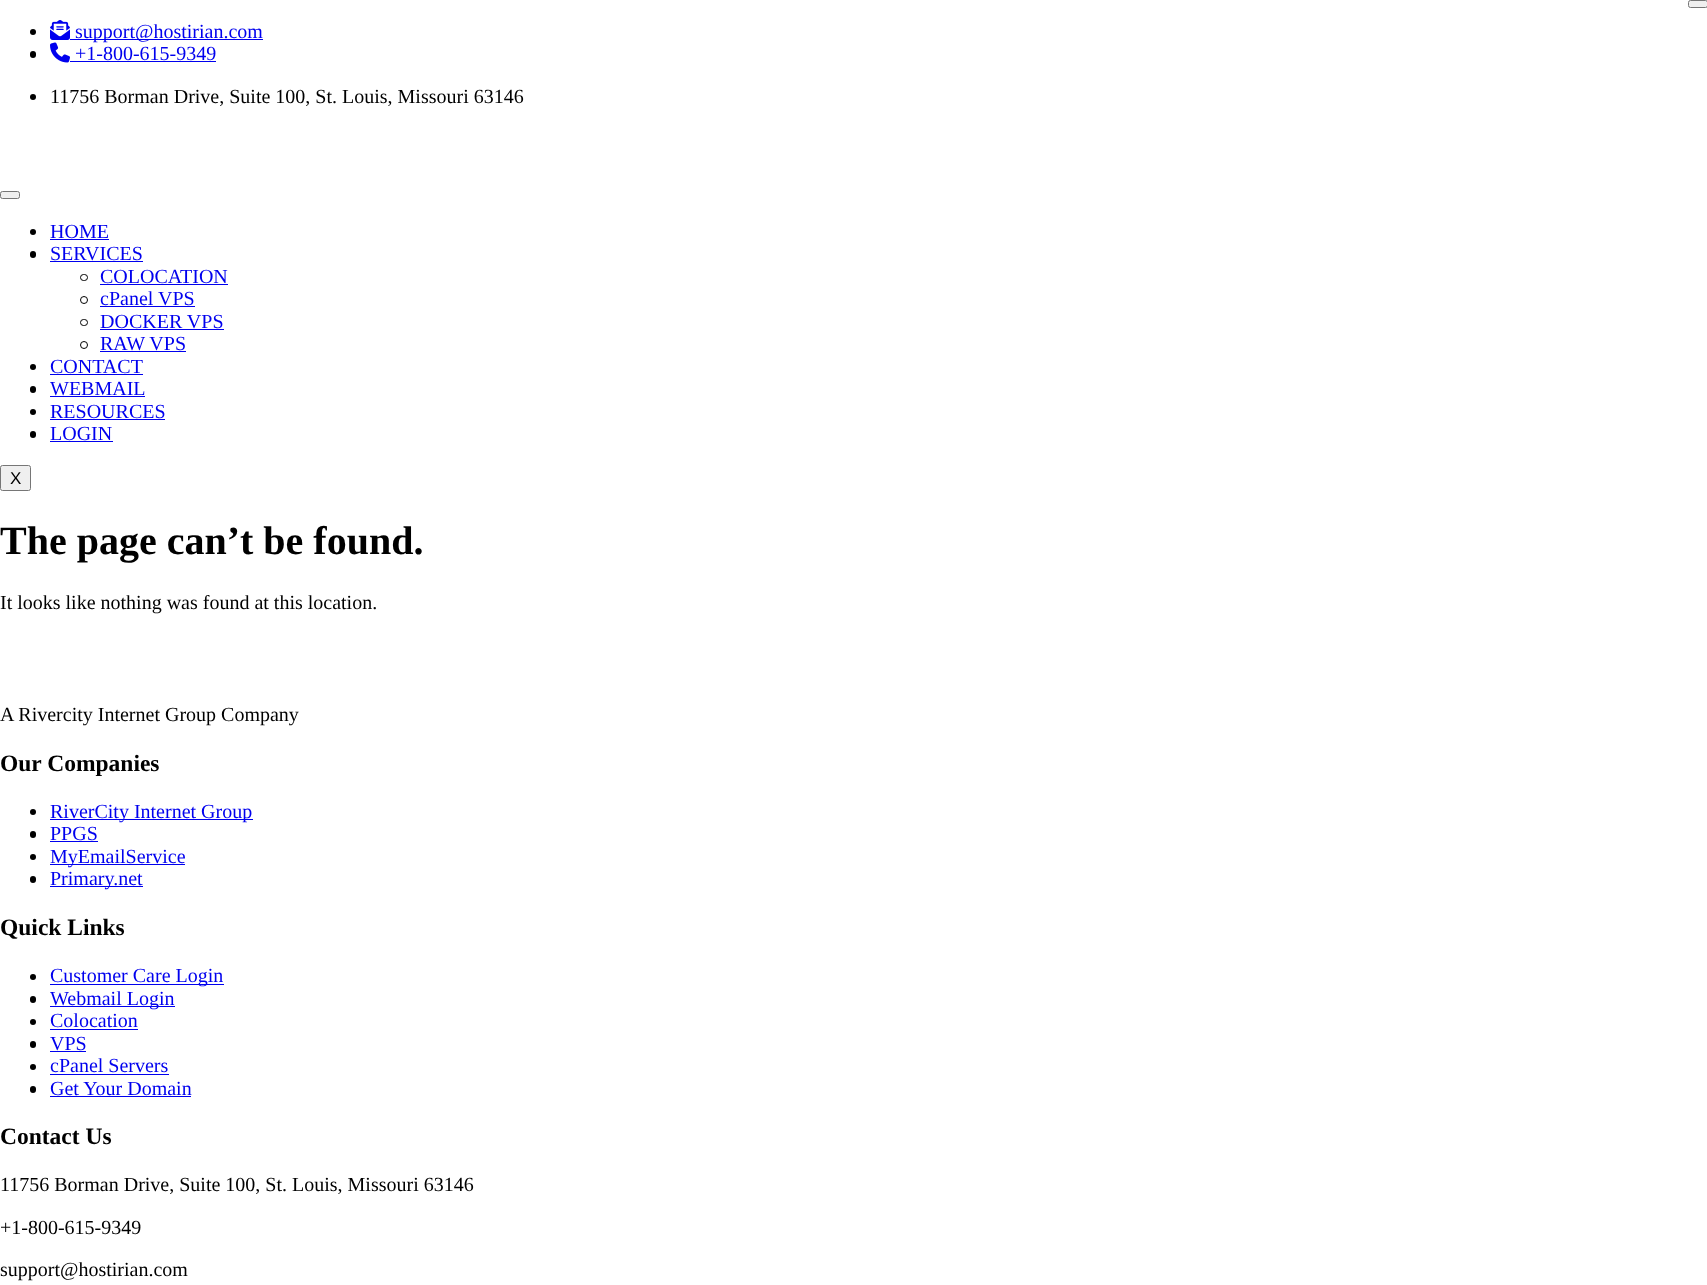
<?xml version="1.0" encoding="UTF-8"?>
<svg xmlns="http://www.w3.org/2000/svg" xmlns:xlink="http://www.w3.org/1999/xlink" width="1707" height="1285">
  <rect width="100%" height="100%" fill="#ffffff" />
  <rect x="1688.5" y="0.5" width="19" height="7" rx="2" fill="#efefef" stroke="#767676" />
  <circle cx="33" cy="32" r="3" fill="#000000" />
  <image x="50" y="20" width="20" height="20" xlink:href="image1.png" />
  <rect x="70" y="39" width="193" height="1" fill="#0000ee" />
  <rect x="30" y="51" width="6" height="7" rx="3" fill="#000000" />
  <image x="50" y="42" width="20" height="21" xlink:href="image2.png" />
  <rect x="70" y="61" width="146" height="1" fill="#0000ee" />
  <circle cx="33" cy="97" r="3" fill="#000000" />
  <rect x="0.5" y="191.5" width="19" height="7" rx="2" fill="#efefef" stroke="#767676" />
  <circle cx="33" cy="232" r="3" fill="#000000" />
  <rect x="50" y="239" width="59" height="1" fill="#0000ee" />
  <rect x="30" y="251" width="6" height="7" rx="3" fill="#000000" />
  <rect x="50" y="261" width="93" height="1" fill="#0000ee" />
  <rect x="80.5" y="274.5" width="7" height="6" rx="3" fill="none" stroke="#000000" />
  <rect x="100" y="284" width="128" height="1" fill="#0000ee" />
  <circle cx="84" cy="300" r="3.5" fill="none" stroke="#000000" />
  <rect x="100" y="306" width="95" height="1" fill="#0000ee" />
  <rect x="80.5" y="319.5" width="7" height="6" rx="3" fill="none" stroke="#000000" />
  <rect x="100" y="329" width="124" height="1" fill="#0000ee" />
  <circle cx="84" cy="345" r="3.5" fill="none" stroke="#000000" />
  <rect x="100" y="351" width="86" height="1" fill="#0000ee" />
  <circle cx="33" cy="367" r="3" fill="#000000" />
  <rect x="50" y="374" width="93" height="1" fill="#0000ee" />
  <rect x="30" y="386" width="6" height="7" rx="3" fill="#000000" />
  <rect x="50" y="396" width="95" height="1" fill="#0000ee" />
  <circle cx="33" cy="412" r="3" fill="#000000" />
  <rect x="50" y="419" width="115" height="1" fill="#0000ee" />
  <rect x="30" y="431" width="6" height="7" rx="3" fill="#000000" />
  <rect x="50" y="441" width="63" height="1" fill="#0000ee" />
  <rect x="0.5" y="465.5" width="30" height="25" rx="2" fill="#efefef" stroke="#767676" />
  <circle cx="33" cy="812" r="3" fill="#000000" />
  <rect x="50" y="819" width="203" height="1" fill="#0000ee" />
  <rect x="30" y="831" width="6" height="7" rx="3" fill="#000000" />
  <rect x="50" y="841" width="48" height="1" fill="#0000ee" />
  <circle cx="33" cy="857" r="3" fill="#000000" />
  <rect x="50" y="864" width="135" height="1" fill="#0000ee" />
  <rect x="30" y="876" width="6" height="7" rx="3" fill="#000000" />
  <rect x="50" y="886" width="93" height="1" fill="#0000ee" />
  <circle cx="33" cy="977" r="3" fill="#000000" />
  <rect x="50" y="984" width="174" height="1" fill="#0000ee" />
  <rect x="30" y="996" width="6" height="7" rx="3" fill="#000000" />
  <rect x="50" y="1006" width="125" height="1" fill="#0000ee" />
  <circle cx="33" cy="1022" r="3" fill="#000000" />
  <rect x="50" y="1029" width="88" height="1" fill="#0000ee" />
  <rect x="30" y="1041" width="6" height="7" rx="3" fill="#000000" />
  <rect x="50" y="1051" width="36" height="1" fill="#0000ee" />
  <circle cx="33" cy="1067" r="3" fill="#000000" />
  <rect x="50" y="1074" width="119" height="1" fill="#0000ee" />
  <rect x="30" y="1086" width="6" height="7" rx="3" fill="#000000" />
  <rect x="50" y="1096" width="141" height="1" fill="#0000ee" />
  <text x="75" y="38" style="font-family: Liberation Serif; font-size: 20px; fill: #0000ee">support@hostirian.com</text>
  <text x="75" y="60" style="font-family: Liberation Serif; font-size: 20px; fill: #0000ee">+1-800-615-9349</text>
  <text x="50" y="103" style="font-family: Liberation Serif; font-size: 20px; fill: #000000">11756 Borman Drive, Suite 100, St. Louis, Missouri 63146</text>
  <text x="50" y="238" style="font-family: Liberation Serif; font-size: 20px; fill: #0000ee">HOME</text>
  <text x="50" y="260" style="font-family: Liberation Serif; font-size: 20px; fill: #0000ee">SERVICES</text>
  <text x="100" y="283" style="font-family: Liberation Serif; font-size: 20px; fill: #0000ee">COLOCATION</text>
  <text x="100" y="305" style="font-family: Liberation Serif; font-size: 20px; fill: #0000ee">cPanel VPS</text>
  <text x="100" y="328" style="font-family: Liberation Serif; font-size: 20px; fill: #0000ee">DOCKER VPS</text>
  <text x="100" y="350" style="font-family: Liberation Serif; font-size: 20px; fill: #0000ee">RAW VPS</text>
  <text x="50" y="373" style="font-family: Liberation Serif; font-size: 20px; fill: #0000ee">CONTACT</text>
  <text x="50" y="395" style="font-family: Liberation Serif; font-size: 20px; fill: #0000ee">WEBMAIL</text>
  <text x="50" y="418" style="font-family: Liberation Serif; font-size: 20px; fill: #0000ee">RESOURCES</text>
  <text x="50" y="440" style="font-family: Liberation Serif; font-size: 20px; fill: #0000ee">LOGIN</text>
  <text x="10" y="484" style="font-family: Liberation Sans; font-size: 17px; fill: #000000">X</text>
  <text x="0" y="554" style="font-family: Liberation Serif; font-size: 40px; font-weight: bold; fill: #000000">The page can’t be found.</text>
  <text x="0" y="609" style="font-family: Liberation Serif; font-size: 20px; fill: #000000">It looks like nothing was found at this location.</text>
  <text x="0" y="721" style="font-family: Liberation Serif; font-size: 20px; fill: #000000">A Rivercity Internet Group Company</text>
  <text x="0" y="771" style="font-family: Liberation Serif; font-size: 23.5px; font-weight: bold; fill: #000000">Our Companies</text>
  <text x="50" y="818" style="font-family: Liberation Serif; font-size: 20px; fill: #0000ee">RiverCity Internet Group</text>
  <text x="50" y="840" style="font-family: Liberation Serif; font-size: 20px; fill: #0000ee">PPGS</text>
  <text x="50" y="863" style="font-family: Liberation Serif; font-size: 20px; fill: #0000ee">MyEmailService</text>
  <text x="50" y="885" style="font-family: Liberation Serif; font-size: 20px; fill: #0000ee">Primary.net</text>
  <text x="0" y="935" style="font-family: Liberation Serif; font-size: 23.5px; font-weight: bold; fill: #000000">Quick Links</text>
  <text x="50" y="982" style="font-family: Liberation Serif; font-size: 20px; fill: #0000ee">Customer Care Login</text>
  <text x="50" y="1005" style="font-family: Liberation Serif; font-size: 20px; fill: #0000ee">Webmail Login</text>
  <text x="50" y="1027" style="font-family: Liberation Serif; font-size: 20px; fill: #0000ee">Colocation</text>
  <text x="50" y="1050" style="font-family: Liberation Serif; font-size: 20px; fill: #0000ee">VPS</text>
  <text x="50" y="1072" style="font-family: Liberation Serif; font-size: 20px; fill: #0000ee">cPanel Servers</text>
  <text x="50" y="1095" style="font-family: Liberation Serif; font-size: 20px; fill: #0000ee">Get Your Domain</text>
  <text x="0" y="1144" style="font-family: Liberation Serif; font-size: 23.5px; font-weight: bold; fill: #000000">Contact Us</text>
  <text x="0" y="1191" style="font-family: Liberation Serif; font-size: 20px; fill: #000000">11756 Borman Drive, Suite 100, St. Louis, Missouri 63146</text>
  <text x="0" y="1234" style="font-family: Liberation Serif; font-size: 20px; fill: #000000">+1-800-615-9349</text>
  <text x="0" y="1276" style="font-family: Liberation Serif; font-size: 20px; fill: #000000">support@hostirian.com</text>
</svg>
